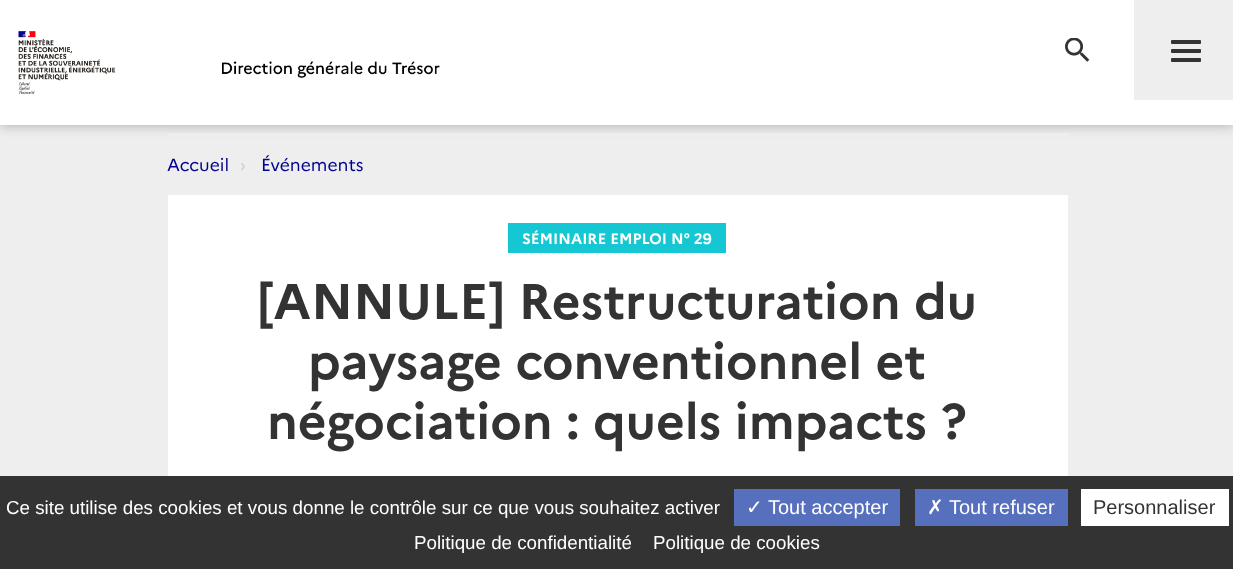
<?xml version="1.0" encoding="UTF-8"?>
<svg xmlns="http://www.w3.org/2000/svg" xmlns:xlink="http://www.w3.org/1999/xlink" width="1233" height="569">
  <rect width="100%" height="100%" fill="#eeeeee" />
  <rect width="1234" height="126" fill="#000000" fill-opacity="0.25" filter="blur(6px)" />
  <rect width="1233" height="125" fill="#ffffff" />
  <image x="18" y="31" width="98" height="63" xlink:href="image1.png" />
  <image x="222" y="61" width="218" height="17" xlink:href="image2.png" />
  <image x="1065" y="38" width="25" height="24" xlink:href="image3.png" />
  <rect x="1134" width="99" height="100" fill="#eeeeee" />
  <rect x="1171" y="40" width="30" height="4" rx="1" fill="#333333" />
  <rect x="1171" y="49" width="30" height="4" rx="1" fill="#333333" />
  <rect x="1171" y="58" width="30" height="4" rx="1" fill="#333333" />
  <rect x="168" y="133" width="900" height="3" fill="#eeeeee" />
  <rect x="168" y="195" width="900" height="281" fill="#ffffff" />
  <rect x="508" y="223" width="218" height="30" fill="#15c7d2" />
  <rect y="476" width="1233" height="93" fill="#333333" />
  <rect x="734" y="489" width="166" height="37" fill="#5770be" />
  <rect x="915" y="489" width="153" height="37" fill="#5770be" />
  <rect x="1081" y="489" width="148" height="37" fill="#ffffff" />
  <text x="167" y="171" style="font-family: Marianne; font-size: 17.5px; fill: #000091">Accueil</text>
  <text x="240" y="171" style="font-family: Marianne; font-size: 17.5px; fill: #cccccc">›</text>
  <text x="261" y="171" style="font-family: Marianne; font-size: 17.5px; fill: #000091">Événements</text>
  <text x="522" y="244" style="font-family: Marianne; font-size: 15px; font-weight: bold; fill: #ffffff">SÉMINAIRE EMPLOI N° 29</text>
  <text x="257" y="319" style="font-family: Marianne; font-size: 50px; font-weight: bold; fill: #333333">[ANNULE] Restructuration du</text>
  <text x="308" y="379" style="font-family: Marianne; font-size: 50px; font-weight: bold; fill: #333333">paysage conventionnel et</text>
  <text x="267" y="439" style="font-family: Marianne; font-size: 50px; font-weight: bold; fill: #333333">négociation : quels impacts ?</text>
  <text x="6" y="514" style="font-family: Liberation Sans; font-size: 18.75px; fill: #ffffff">Ce site utilise des cookies et vous donne le contrôle sur ce que vous souhaitez activer</text>
  <text x="746" y="514" style="font-family: DejaVu Sans; font-size: 20px; fill: #ffffff">✓</text>
  <text x="768" y="514" style="font-family: Liberation Sans; font-size: 20px; fill: #ffffff">Tout accepter</text>
  <text x="927" y="514" style="font-family: DejaVu Sans; font-size: 20px; fill: #ffffff">✗</text>
  <text x="949" y="514" style="font-family: Liberation Sans; font-size: 20px; fill: #ffffff">Tout refuser</text>
  <text x="1093" y="514" style="font-family: Liberation Sans; font-size: 20px; fill: #333333">Personnaliser</text>
  <text x="414" y="549" style="font-family: Liberation Sans; font-size: 18.75px; fill: #ffffff">Politique de confidentialité</text>
  <text x="653" y="549" style="font-family: Liberation Sans; font-size: 18.75px; fill: #ffffff">Politique de cookies</text>
</svg>
